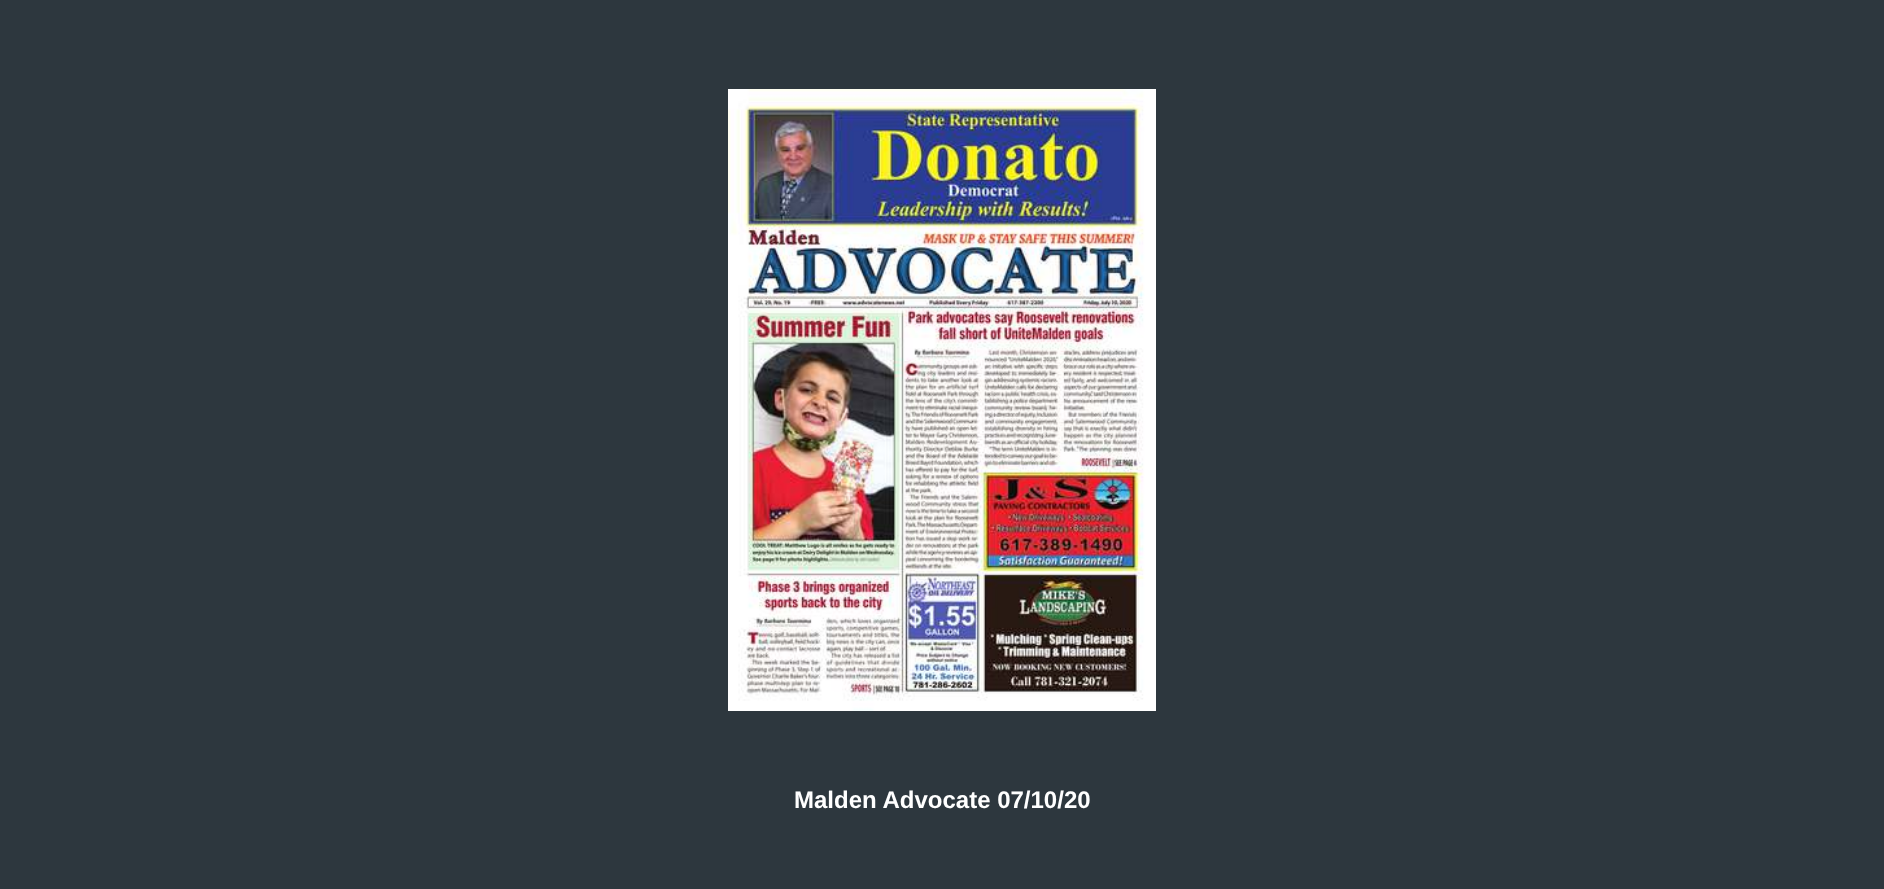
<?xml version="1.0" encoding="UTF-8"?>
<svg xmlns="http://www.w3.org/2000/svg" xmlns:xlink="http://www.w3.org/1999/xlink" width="1884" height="889">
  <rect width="100%" height="100%" fill="#2d373e" />
  <image x="728" y="89" width="428" height="622" xlink:href="image1.png" />
  <text x="794" y="808" style="font-family: Liberation Sans; font-size: 24px; font-weight: bold; fill: #ffffff">Malden Advocate 07/10/20</text>
</svg>
